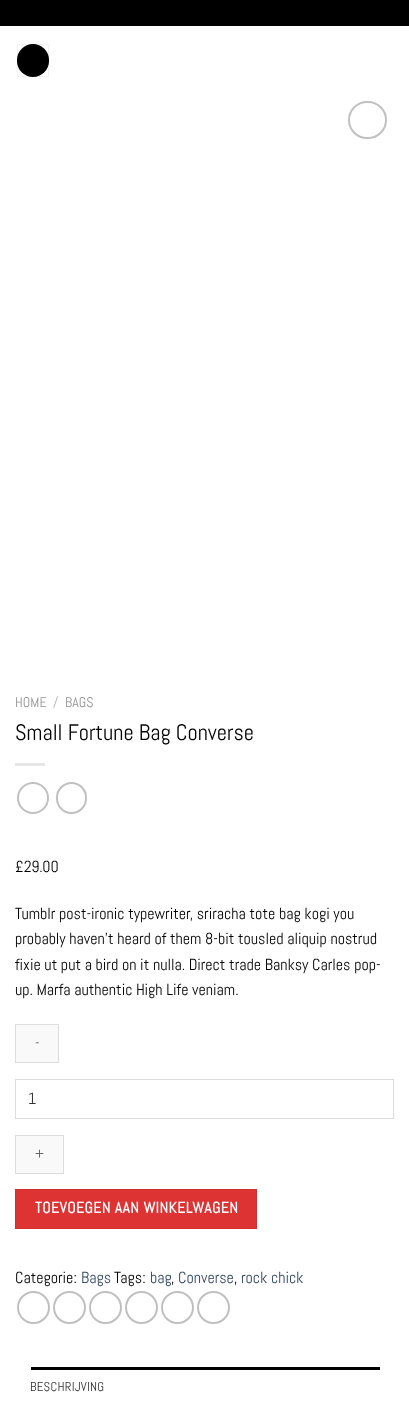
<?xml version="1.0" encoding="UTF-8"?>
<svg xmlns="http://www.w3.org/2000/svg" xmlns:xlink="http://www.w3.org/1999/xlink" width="409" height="1421">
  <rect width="100%" height="100%" fill="#000000" />
  <rect y="26" width="409" height="1395" fill="#ffffff" />
  <rect x="17" y="44" width="32" height="33" rx="16" fill="#000000" />
  <rect x="17.5" y="44.5" width="31" height="32" fill="none" stroke="#000000" stroke-opacity="0.05" />
  <rect x="349" y="102" width="37" height="36" rx="18" fill="none" stroke="#c0c0c0" stroke-width="2" />
  <rect x="15" y="763" width="30" height="3" fill="#e6e6e6" />
  <circle cx="33" cy="798" r="15" fill="none" stroke="#c0c0c0" stroke-width="2" />
  <rect x="57" y="783" width="29" height="30" rx="14.5" fill="none" stroke="#c0c0c0" stroke-width="2" />
  <rect x="15.5" y="1024.5" width="43" height="38" fill="#f9f9f9" stroke="#dddddd" />
  <rect x="15.5" y="1079.5" width="378" height="39" fill="none" stroke="#dddddd" />
  <rect x="15.5" y="1135.5" width="48" height="38" fill="#f9f9f9" stroke="#dddddd" />
  <rect x="15.5" y="1189.5" width="241" height="39" fill="#dd3333" stroke="#d23030" />
  <circle cx="33.5" cy="1307.5" r="15.5" fill="none" stroke="#c0c0c0" stroke-width="2" />
  <circle cx="69.5" cy="1307.5" r="15.5" fill="none" stroke="#c0c0c0" stroke-width="2" />
  <circle cx="105.5" cy="1307.5" r="15.5" fill="none" stroke="#c0c0c0" stroke-width="2" />
  <circle cx="141.5" cy="1307.5" r="15.5" fill="none" stroke="#c0c0c0" stroke-width="2" />
  <circle cx="177.5" cy="1307.5" r="15.5" fill="none" stroke="#c0c0c0" stroke-width="2" />
  <circle cx="213.5" cy="1307.5" r="15.5" fill="none" stroke="#c0c0c0" stroke-width="2" />
  <rect x="31" y="1367" width="349" height="3" fill="#000000" />
  <text x="15" y="707" style="font-family: Abel; font-size: 14px; fill: #949494">HOME</text>
  <text x="53" y="707" style="font-family: Abel; font-size: 14px; fill: #b2b2b2">/</text>
  <text x="65" y="707" style="font-family: Abel; font-size: 14px; fill: #949494">BAGS</text>
  <text x="15" y="740" style="font-family: Abel; font-size: 22.4px; fill: #000000">Small Fortune Bag Converse</text>
  <text x="15" y="872" style="font-family: Abel; font-size: 16px; fill: #000000">£29.00</text>
  <text x="15" y="919" style="font-family: Abel; font-size: 16px; fill: #000000">Tumblr post-ironic typewriter, sriracha tote bag kogi you</text>
  <text x="15" y="944" style="font-family: Abel; font-size: 16px; fill: #000000">probably haven’t heard of them 8-bit tousled aliquip nostrud</text>
  <text x="15" y="970" style="font-family: Abel; font-size: 16px; fill: #000000">fixie ut put a bird on it nulla. Direct trade Banksy Carles pop-</text>
  <text x="15" y="995" style="font-family: Abel; font-size: 16px; fill: #000000">up. Marfa authentic High Life veniam.</text>
  <text x="35" y="1048" style="font-family: Abel; font-size: 15.5px; letter-spacing: 0.5px; fill: #666666">-</text>
  <text x="28" y="1104" style="font-family: Abel; font-size: 16px; fill: #333333">1</text>
  <text x="35" y="1159" style="font-family: Abel; font-size: 15.5px; letter-spacing: 0.5px; fill: #666666">+</text>
  <text x="35" y="1213" style="font-family: Abel; font-size: 15.5px; font-weight: bold; letter-spacing: 0.5px; fill: #ffffff">TOEVOEGEN AAN WINKELWAGEN</text>
  <text x="15" y="1283" style="font-family: Abel; font-size: 16px; fill: #000000">Categorie:</text>
  <text x="81" y="1283" style="font-family: Abel; font-size: 16px; fill: #334862">Bags</text>
  <text x="114" y="1283" style="font-family: Abel; font-size: 16px; fill: #000000">Tags:</text>
  <text x="150" y="1283" style="font-family: Abel; font-size: 16px; fill: #334862">bag</text>
  <text x="171" y="1283" style="font-family: Abel; font-size: 16px; fill: #000000">,</text>
  <text x="178" y="1283" style="font-family: Abel; font-size: 16px; fill: #334862">Converse</text>
  <text x="234" y="1283" style="font-family: Abel; font-size: 16px; fill: #000000">,</text>
  <text x="241" y="1283" style="font-family: Abel; font-size: 16px; fill: #334862">rock chick</text>
  <text x="30" y="1391" style="font-family: Abel; font-size: 12.75px; letter-spacing: 0.25px; fill: #333333">BESCHRIJVING</text>
</svg>
